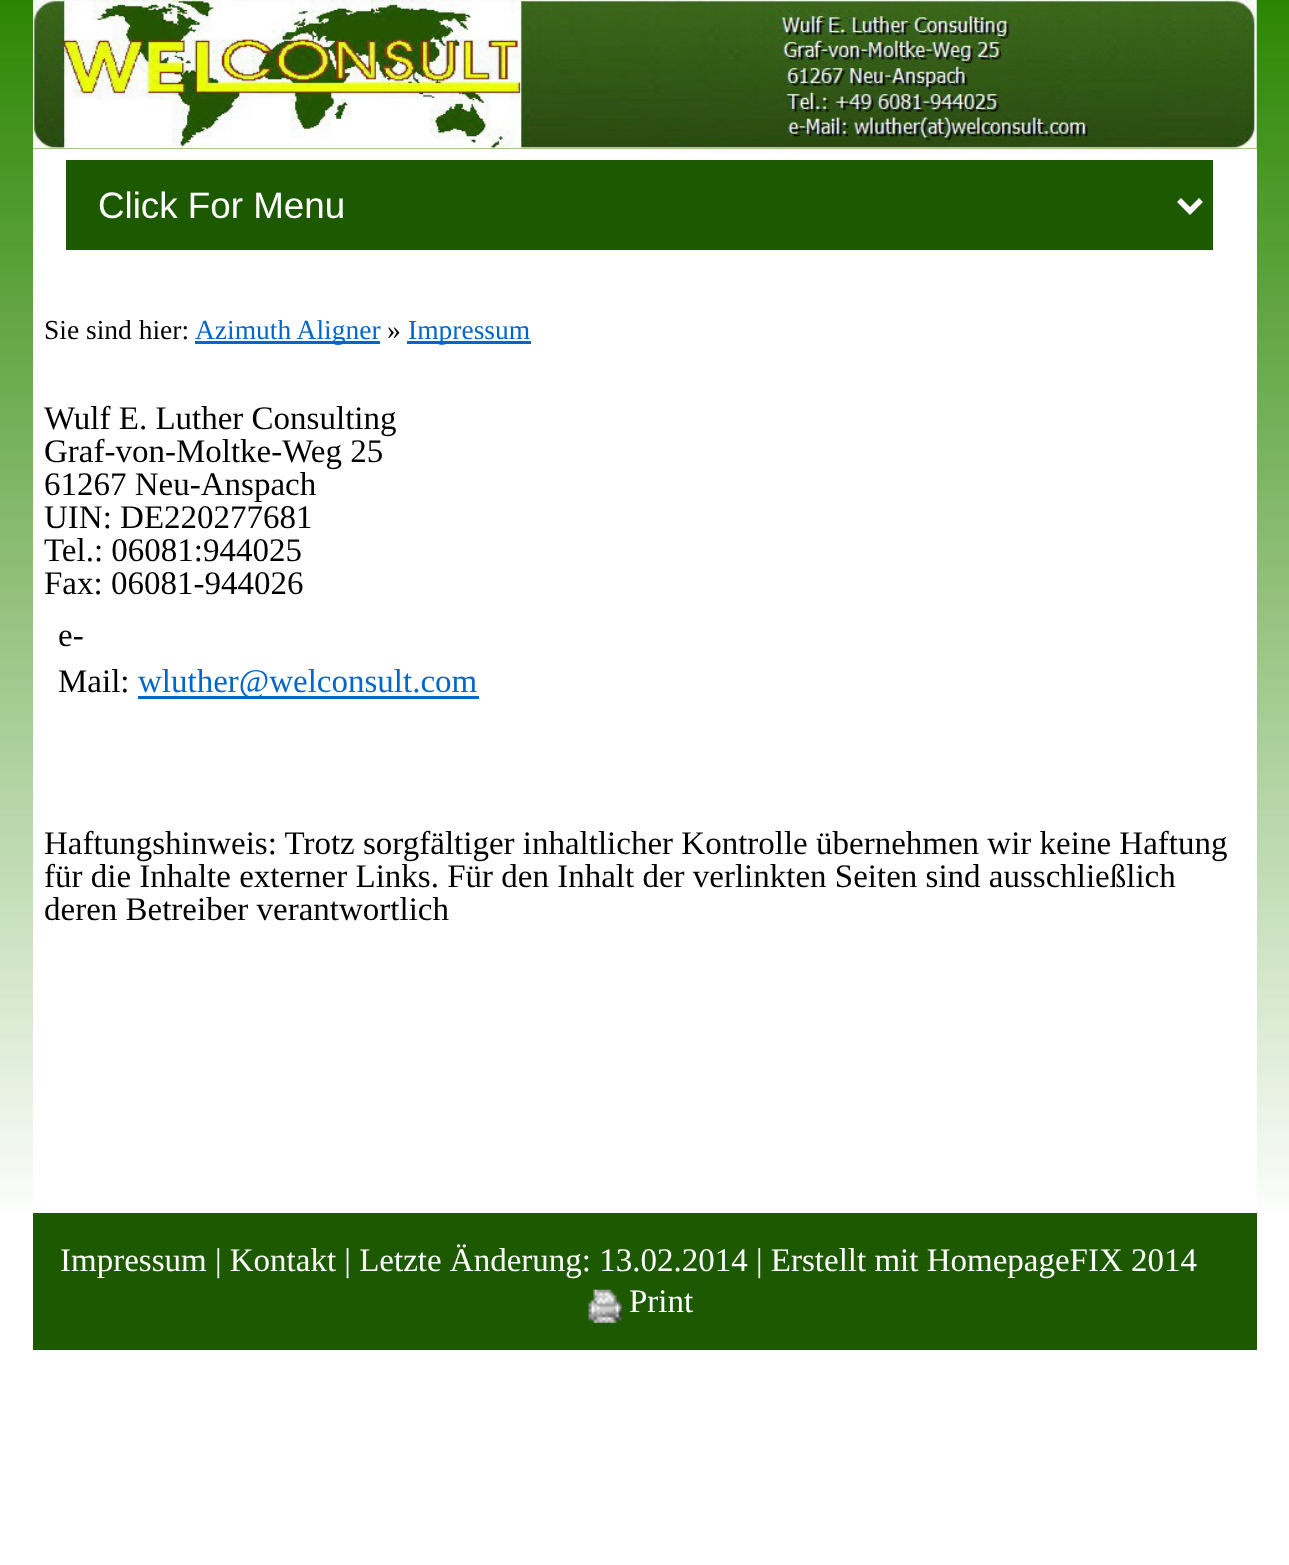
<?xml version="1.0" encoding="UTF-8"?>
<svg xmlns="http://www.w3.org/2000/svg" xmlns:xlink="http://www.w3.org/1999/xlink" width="1289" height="1565">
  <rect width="100%" height="100%" fill="#ffffff" />
  <image x="0" y="0" width="1289" height="1210" xlink:href="image1.png" />
  <image x="33" y="0" width="1224" height="149" xlink:href="image2.png" />
  <rect x="33" y="149" width="1224" height="1061" fill="#ffffff" />
  <rect x="66" y="160" width="1147" height="90" fill="#1d5901" />
  <path d="M 1179 200 l 11 11 l 11 -11" fill="none" stroke="#ffffff" stroke-width="5.5" />
  <rect x="195" y="341" width="185" height="3" fill="#0066cc" />
  <rect x="407" y="341" width="124" height="3" fill="#0066cc" />
  <rect x="138" y="696" width="341" height="3" fill="#0066cc" />
  <rect x="33" y="1213" width="1224" height="137" fill="#1d5901" />
  <image x="588" y="1289" width="34" height="34" xlink:href="image3.png" />
  <text x="98" y="218" style="font-family: Liberation Sans; font-size: 36.75px; fill: #ffffff">Click For Menu</text>
  <text x="44" y="339" style="font-family: Liberation Serif; font-size: 27.5px; fill: #000000">Sie sind hier:</text>
  <text x="195" y="339" style="font-family: Liberation Serif; font-size: 27.5px; fill: #0066cc">Azimuth Aligner</text>
  <text x="387" y="339" style="font-family: Liberation Serif; font-size: 27.5px; fill: #000000">»</text>
  <text x="408" y="339" style="font-family: Liberation Serif; font-size: 27.5px; fill: #0066cc">Impressum</text>
  <text x="44" y="429" style="font-family: Liberation Serif; font-size: 33px; fill: #000000">Wulf E. Luther Consulting</text>
  <text x="44" y="462" style="font-family: Liberation Serif; font-size: 33px; fill: #000000">Graf-von-Moltke-Weg 25</text>
  <text x="44" y="495" style="font-family: Liberation Serif; font-size: 33px; fill: #000000">61267 Neu-Anspach</text>
  <text x="44" y="528" style="font-family: Liberation Serif; font-size: 33px; fill: #000000">UIN: DE220277681</text>
  <text x="44" y="561" style="font-family: Liberation Serif; font-size: 33px; fill: #000000">Tel.: 06081:944025</text>
  <text x="44" y="594" style="font-family: Liberation Serif; font-size: 33px; fill: #000000">Fax: 06081-944026</text>
  <text x="58" y="646" style="font-family: Liberation Serif; font-size: 33px; fill: #000000">e-</text>
  <text x="58" y="692" style="font-family: Liberation Serif; font-size: 33px; fill: #000000">Mail:</text>
  <text x="138" y="692" style="font-family: Liberation Serif; font-size: 33px; fill: #0066cc">wluther@welconsult.com</text>
  <text x="44" y="854" style="font-family: Liberation Serif; font-size: 33px; fill: #000000">Haftungshinweis: Trotz sorgfältiger inhaltlicher Kontrolle übernehmen wir keine Haftung</text>
  <text x="44" y="887" style="font-family: Liberation Serif; font-size: 33px; fill: #000000">für die Inhalte externer Links. Für den Inhalt der verlinkten Seiten sind ausschließlich</text>
  <text x="44" y="920" style="font-family: Liberation Serif; font-size: 33px; fill: #000000">deren Betreiber verantwortlich</text>
  <text x="60" y="1271" style="font-family: Liberation Serif; font-size: 33px; fill: #ffffff">Impressum | Kontakt | Letzte Änderung: 13.02.2014 | Erstellt mit HomepageFIX 2014</text>
  <text x="629" y="1312" style="font-family: Liberation Serif; font-size: 33px; fill: #ffffff">Print</text>
</svg>
